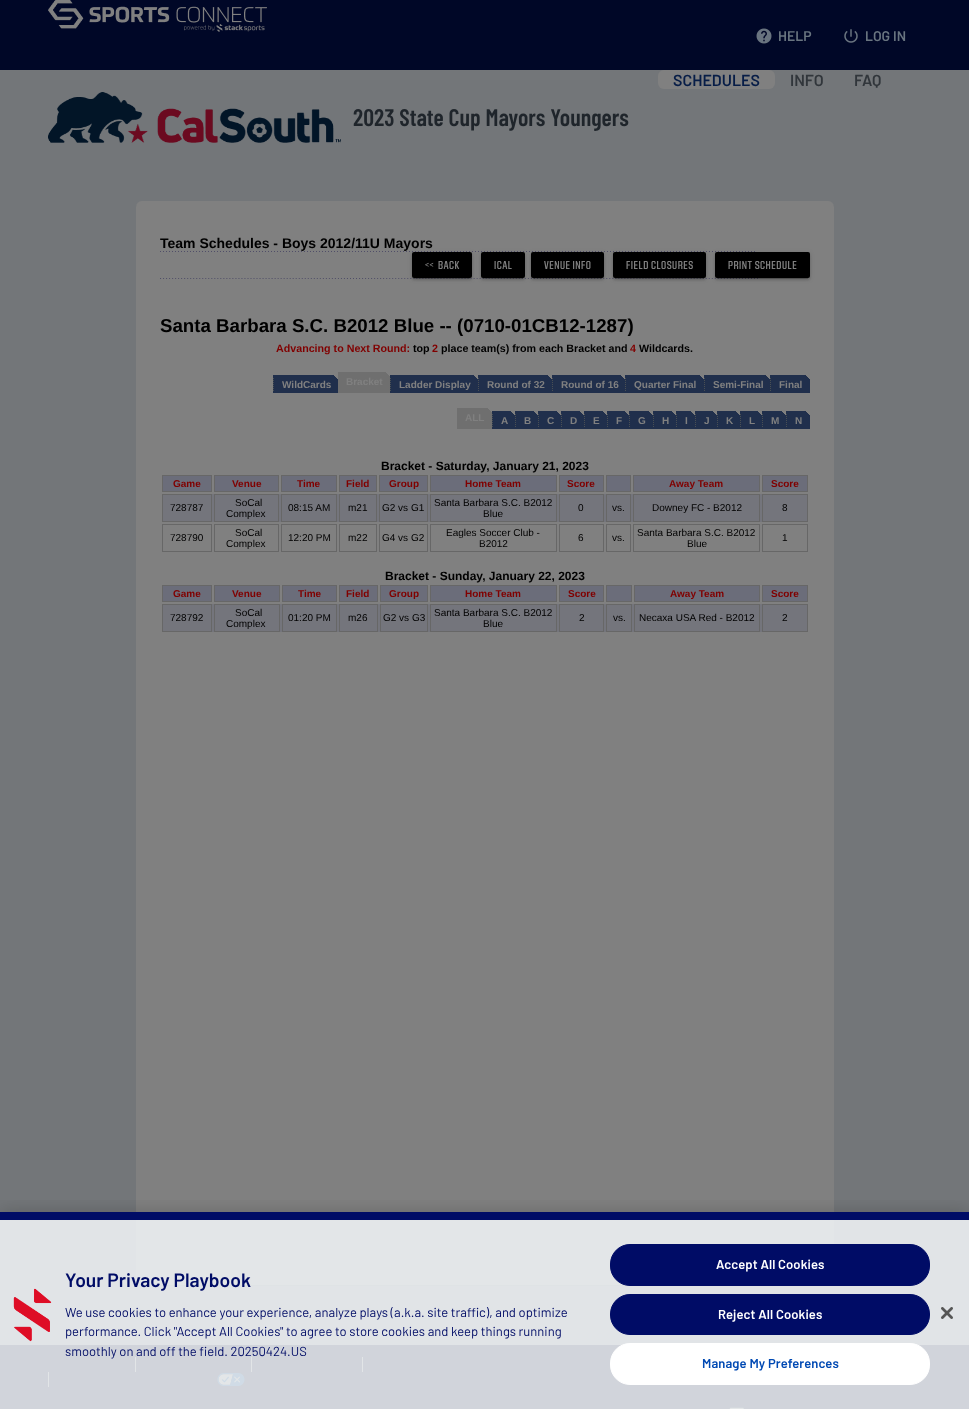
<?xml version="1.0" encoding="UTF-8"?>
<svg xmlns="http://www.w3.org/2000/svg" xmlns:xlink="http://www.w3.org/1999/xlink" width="969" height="1409">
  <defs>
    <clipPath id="clip1"><rect x="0" y="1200" width="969" height="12" /></clipPath>
  </defs>
  <rect width="100%" height="100%" fill="#737679" />
  <rect width="969" height="70" fill="#000727" />
  <image x="48" y="0" width="219" height="32" xlink:href="image1.png" />
  <image x="756" y="28" width="16" height="16" xlink:href="image2.png" />
  <image x="844" y="29" width="14" height="14" xlink:href="image3.png" />
  <rect x="658" y="70" width="117" height="19" rx="6" fill="#808080" />
  <image x="48" y="92" width="293" height="51" xlink:href="image4.png" />
  <rect x="136" y="202" width="698" height="1084" rx="6" fill="#000000" fill-opacity="0.1" filter="blur(0.5px)" />
  <rect x="136" y="201" width="698" height="1084" rx="6" fill="#808080" />
  <image x="160" y="251" width="595" height="1" xlink:href="image5.png" />
  <image x="160" y="278" width="598" height="1" xlink:href="image6.png" />
  <rect x="414" y="257" width="56" height="22" fill="#000000" fill-opacity="0.2" filter="blur(0.5px)" />
  <rect x="412" y="253" width="60" height="26" rx="2" fill="#000000" fill-opacity="0.12" filter="blur(2.5px)" />
  <rect x="412" y="254" width="60" height="26" rx="2" fill="#000000" fill-opacity="0.14" filter="blur(1px)" />
  <rect x="412" y="252" width="60" height="26" rx="2" fill="#000000" />
  <rect x="483" y="257" width="40" height="22" fill="#000000" fill-opacity="0.2" filter="blur(0.5px)" />
  <rect x="481" y="253" width="44" height="26" rx="2" fill="#000000" fill-opacity="0.12" filter="blur(2.5px)" />
  <rect x="481" y="254" width="44" height="26" rx="2" fill="#000000" fill-opacity="0.14" filter="blur(1px)" />
  <rect x="481" y="252" width="44" height="26" rx="2" fill="#000000" />
  <rect x="533" y="257" width="69" height="22" fill="#000000" fill-opacity="0.2" filter="blur(0.5px)" />
  <rect x="531" y="253" width="73" height="26" rx="2" fill="#000000" fill-opacity="0.12" filter="blur(2.5px)" />
  <rect x="531" y="254" width="73" height="26" rx="2" fill="#000000" fill-opacity="0.14" filter="blur(1px)" />
  <rect x="531" y="252" width="73" height="26" rx="2" fill="#000000" />
  <rect x="615" y="257" width="89" height="22" fill="#000000" fill-opacity="0.2" filter="blur(0.5px)" />
  <rect x="613" y="253" width="93" height="26" rx="2" fill="#000000" fill-opacity="0.12" filter="blur(2.5px)" />
  <rect x="613" y="254" width="93" height="26" rx="2" fill="#000000" fill-opacity="0.14" filter="blur(1px)" />
  <rect x="613" y="252" width="93" height="26" rx="2" fill="#000000" />
  <rect x="717" y="257" width="91" height="22" fill="#000000" fill-opacity="0.2" filter="blur(0.5px)" />
  <rect x="715" y="253" width="95" height="26" rx="2" fill="#000000" fill-opacity="0.12" filter="blur(2.5px)" />
  <rect x="715" y="254" width="95" height="26" rx="2" fill="#000000" fill-opacity="0.14" filter="blur(1px)" />
  <rect x="715" y="252" width="95" height="26" rx="2" fill="#000000" />
  <rect x="338" y="372" width="52" height="21" fill="#6f6f6f" />
  <image x="386" y="372" width="4" height="4" xlink:href="image7.png" />
  <rect x="273" y="375" width="65" height="18" fill="#202f4c" />
  <image x="273" y="378" width="1" height="13" xlink:href="image8.png" />
  <image x="334" y="375" width="4" height="4" xlink:href="image9.png" />
  <rect x="390" y="375" width="420" height="18" fill="#202f4c" />
  <image x="390" y="378" width="1" height="13" xlink:href="image8.png" />
  <image x="474" y="375" width="4" height="4" xlink:href="image9.png" />
  <image x="478" y="378" width="1" height="13" xlink:href="image8.png" />
  <image x="548" y="375" width="4" height="4" xlink:href="image9.png" />
  <image x="552" y="378" width="1" height="13" xlink:href="image8.png" />
  <image x="621" y="375" width="4" height="4" xlink:href="image9.png" />
  <image x="625" y="378" width="1" height="13" xlink:href="image8.png" />
  <image x="700" y="375" width="4" height="4" xlink:href="image9.png" />
  <image x="704" y="378" width="1" height="13" xlink:href="image8.png" />
  <image x="766" y="375" width="4" height="4" xlink:href="image9.png" />
  <image x="770" y="378" width="1" height="13" xlink:href="image8.png" />
  <image x="806" y="375" width="4" height="4" xlink:href="image9.png" />
  <rect x="457" y="408" width="35" height="21" fill="#6f6f6f" />
  <image x="488" y="408" width="4" height="4" xlink:href="image7.png" />
  <rect x="492" y="411" width="318" height="18" fill="#202f4c" />
  <image x="492" y="414" width="1" height="13" xlink:href="image8.png" />
  <image x="511" y="411" width="4" height="4" xlink:href="image9.png" />
  <image x="534" y="411" width="4" height="4" xlink:href="image9.png" />
  <image x="557" y="411" width="4" height="4" xlink:href="image9.png" />
  <image x="580" y="411" width="4" height="4" xlink:href="image9.png" />
  <image x="603" y="411" width="4" height="4" xlink:href="image9.png" />
  <image x="625" y="411" width="4" height="4" xlink:href="image9.png" />
  <image x="649" y="411" width="4" height="4" xlink:href="image9.png" />
  <image x="672" y="411" width="4" height="4" xlink:href="image9.png" />
  <image x="691" y="411" width="4" height="4" xlink:href="image9.png" />
  <image x="713" y="411" width="4" height="4" xlink:href="image9.png" />
  <image x="736" y="411" width="4" height="4" xlink:href="image9.png" />
  <image x="758" y="411" width="4" height="4" xlink:href="image9.png" />
  <image x="782" y="411" width="4" height="4" xlink:href="image9.png" />
  <image x="806" y="411" width="4" height="4" xlink:href="image9.png" />
  <image x="515" y="414" width="1" height="13" xlink:href="image8.png" />
  <image x="538" y="414" width="1" height="13" xlink:href="image8.png" />
  <image x="561" y="414" width="1" height="13" xlink:href="image8.png" />
  <image x="584" y="414" width="1" height="13" xlink:href="image8.png" />
  <image x="607" y="414" width="1" height="13" xlink:href="image8.png" />
  <image x="629" y="414" width="1" height="13" xlink:href="image8.png" />
  <image x="653" y="414" width="1" height="13" xlink:href="image8.png" />
  <image x="676" y="414" width="1" height="13" xlink:href="image8.png" />
  <image x="695" y="414" width="1" height="13" xlink:href="image8.png" />
  <image x="717" y="414" width="1" height="13" xlink:href="image8.png" />
  <image x="740" y="414" width="1" height="13" xlink:href="image8.png" />
  <image x="762" y="414" width="1" height="13" xlink:href="image8.png" />
  <image x="786" y="414" width="1" height="13" xlink:href="image8.png" />
  <rect x="162.5" y="475.5" width="49" height="16" fill="#6b6d7a" stroke="#676767" />
  <rect x="214.5" y="475.5" width="64" height="16" fill="#6b6d7a" stroke="#676767" />
  <rect x="281.5" y="475.5" width="55" height="16" fill="#6b6d7a" stroke="#676767" />
  <rect x="339.5" y="475.5" width="37" height="16" fill="#6b6d7a" stroke="#676767" />
  <rect x="379.5" y="475.5" width="48" height="16" fill="#6b6d7a" stroke="#676767" />
  <rect x="430.5" y="475.5" width="126" height="16" fill="#6b6d7a" stroke="#676767" />
  <rect x="559.5" y="475.5" width="44" height="16" fill="#6b6d7a" stroke="#676767" />
  <rect x="606.5" y="475.5" width="24" height="16" fill="#6b6d7a" stroke="#676767" />
  <rect x="633.5" y="475.5" width="126" height="16" fill="#6b6d7a" stroke="#676767" />
  <rect x="762.5" y="475.5" width="45" height="16" fill="#6b6d7a" stroke="#676767" />
  <rect x="163" y="494" width="644" height="28" fill="#74757c" />
  <rect x="162.5" y="494.5" width="49" height="27" fill="none" stroke="#676767" />
  <rect x="214.5" y="494.5" width="64" height="27" fill="none" stroke="#676767" />
  <rect x="281.5" y="494.5" width="55" height="27" fill="none" stroke="#676767" />
  <rect x="339.5" y="494.5" width="37" height="27" fill="none" stroke="#676767" />
  <rect x="379.5" y="494.5" width="48" height="27" fill="none" stroke="#676767" />
  <rect x="430.5" y="494.5" width="126" height="27" fill="none" stroke="#676767" />
  <rect x="559.5" y="494.5" width="44" height="27" fill="none" stroke="#676767" />
  <rect x="606.5" y="494.5" width="24" height="27" fill="none" stroke="#676767" />
  <rect x="633.5" y="494.5" width="126" height="27" fill="none" stroke="#676767" />
  <rect x="762.5" y="494.5" width="45" height="27" fill="none" stroke="#676767" />
  <rect x="162.5" y="524.5" width="49" height="27" fill="none" stroke="#676767" />
  <rect x="214.5" y="524.5" width="64" height="27" fill="none" stroke="#676767" />
  <rect x="281.5" y="524.5" width="55" height="27" fill="none" stroke="#676767" />
  <rect x="339.5" y="524.5" width="37" height="27" fill="none" stroke="#676767" />
  <rect x="379.5" y="524.5" width="48" height="27" fill="none" stroke="#676767" />
  <rect x="430.5" y="524.5" width="126" height="27" fill="none" stroke="#676767" />
  <rect x="559.5" y="524.5" width="44" height="27" fill="none" stroke="#676767" />
  <rect x="606.5" y="524.5" width="24" height="27" fill="none" stroke="#676767" />
  <rect x="633.5" y="524.5" width="126" height="27" fill="none" stroke="#676767" />
  <rect x="762.5" y="524.5" width="45" height="27" fill="none" stroke="#676767" />
  <rect x="162.5" y="585.5" width="49" height="16" fill="#6b6d7a" stroke="#676767" />
  <rect x="214.5" y="585.5" width="65" height="16" fill="#6b6d7a" stroke="#676767" />
  <rect x="282.5" y="585.5" width="54" height="16" fill="#6b6d7a" stroke="#676767" />
  <rect x="339.5" y="585.5" width="38" height="16" fill="#6b6d7a" stroke="#676767" />
  <rect x="380.5" y="585.5" width="47" height="16" fill="#6b6d7a" stroke="#676767" />
  <rect x="430.5" y="585.5" width="126" height="16" fill="#6b6d7a" stroke="#676767" />
  <rect x="559.5" y="585.5" width="44" height="16" fill="#6b6d7a" stroke="#676767" />
  <rect x="606.5" y="585.5" width="25" height="16" fill="#6b6d7a" stroke="#676767" />
  <rect x="634.5" y="585.5" width="125" height="16" fill="#6b6d7a" stroke="#676767" />
  <rect x="762.5" y="585.5" width="45" height="16" fill="#6b6d7a" stroke="#676767" />
  <rect x="163" y="604" width="644" height="28" fill="#74757c" />
  <rect x="162.5" y="604.5" width="49" height="27" fill="none" stroke="#676767" />
  <rect x="214.5" y="604.5" width="65" height="27" fill="none" stroke="#676767" />
  <rect x="282.5" y="604.5" width="54" height="27" fill="none" stroke="#676767" />
  <rect x="339.5" y="604.5" width="38" height="27" fill="none" stroke="#676767" />
  <rect x="380.5" y="604.5" width="47" height="27" fill="none" stroke="#676767" />
  <rect x="430.5" y="604.5" width="126" height="27" fill="none" stroke="#676767" />
  <rect x="559.5" y="604.5" width="44" height="27" fill="none" stroke="#676767" />
  <rect x="606.5" y="604.5" width="25" height="27" fill="none" stroke="#676767" />
  <rect x="634.5" y="604.5" width="125" height="27" fill="none" stroke="#676767" />
  <rect x="762.5" y="604.5" width="45" height="27" fill="none" stroke="#676767" />
  <rect y="1345" width="969" height="64" fill="#070d28" />
  <rect x="135" y="1357" width="1" height="15" fill="#7b7b7b" />
  <rect x="251" y="1357" width="1" height="15" fill="#7b7b7b" />
  <rect x="362" y="1357" width="1" height="15" fill="#7b7b7b" />
  <rect x="48" y="1372" width="1" height="15" fill="#7b7b7b" />
  <image x="217" y="1373" width="28" height="13" xlink:href="image12.png" />
  <image x="729" y="1407" width="16" height="2" xlink:href="image13.png" />
  <g clip-path="url(#clip1)">
    <rect y="1212" width="969" height="197" fill="#000000" fill-opacity="0.2" filter="blur(9px)" />
  </g>
  <rect y="1220" width="969" height="189" fill="#f5f8fa" fill-opacity="0.85" />
  <rect y="1212" width="969" height="8" fill="#000c66" />
  <image x="13" y="1288" width="39" height="54" xlink:href="image10.png" />
  <rect x="610.5" y="1244.5" width="319" height="41" rx="19.5" fill="#000c66" stroke="#000c66" />
  <rect x="610.5" y="1294.5" width="319" height="40" rx="19.5" fill="#000c66" stroke="#000c66" />
  <rect x="610.5" y="1343.5" width="319" height="41" rx="19.5" fill="#ffffff" stroke="#ffffff" />
  <image x="941" y="1307" width="12" height="12" xlink:href="image11.png" />
  <text x="778" y="41" style="font-family: Barlow; font-size: 14px; font-weight: 600; fill: #697580">HELP</text>
  <text x="865" y="41" style="font-family: Barlow; font-size: 14px; font-weight: 600; fill: #697580">LOG IN</text>
  <text x="673" y="86" style="font-family: Barlow; font-size: 16px; font-weight: 600; fill: #071d47">SCHEDULES</text>
  <text x="790" y="86" style="font-family: Barlow; font-size: 16px; font-weight: 600; fill: #31363b">INFO</text>
  <text x="854" y="86" style="font-family: Barlow; font-size: 16px; font-weight: 600; fill: #31363b">FAQ</text>
  <text x="353" y="126" style="font-family: Barlow Condensed; font-size: 24px; font-weight: 600; fill: #1f252b">2023 State Cup Mayors Youngers</text>
  <text x="160" y="248" style="font-family: Liberation Sans; font-size: 14px; font-weight: bold; fill: #000000">Team Schedules - Boys 2012/11U Mayors</text>
  <text x="425" y="269" style="font-family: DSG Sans; font-size: 10.7px; font-weight: bold; letter-spacing: 0.5px; fill: #808080" xml:space="preserve">&lt;&lt;  BACK</text>
  <text x="494" y="269" style="font-family: DSG Sans; font-size: 10.7px; font-weight: bold; letter-spacing: 0.5px; fill: #808080">ICAL</text>
  <text x="544" y="269" style="font-family: DSG Sans; font-size: 10.7px; font-weight: bold; letter-spacing: 0.5px; fill: #808080">VENUE INFO</text>
  <text x="626" y="269" style="font-family: DSG Sans; font-size: 10.7px; font-weight: bold; letter-spacing: 0.5px; fill: #808080">FIELD CLOSURES</text>
  <text x="728" y="269" style="font-family: DSG Sans; font-size: 10.7px; font-weight: bold; letter-spacing: 0.5px; fill: #808080">PRINT SCHEDULE</text>
  <text x="160" y="332" style="font-family: Liberation Sans; font-size: 18.7px; font-weight: bold; fill: #000000">Santa Barbara S.C. B2012 Blue -- (0710-01CB12-1287)</text>
  <text x="276" y="352" style="font-family: Liberation Sans; font-size: 10.7px; font-weight: bold; fill: #800000">Advancing to Next Round:</text>
  <text x="413" y="352" style="font-family: Liberation Sans; font-size: 10.7px; font-weight: bold; fill: #000000">top</text>
  <text x="432" y="352" style="font-family: Liberation Sans; font-size: 10.7px; font-weight: bold; fill: #800000">2</text>
  <text x="441" y="352" style="font-family: Liberation Sans; font-size: 10.7px; font-weight: bold; fill: #000000">place team(s) from each Bracket and</text>
  <text x="630" y="352" style="font-family: Liberation Sans; font-size: 10.7px; font-weight: bold; fill: #800000">4</text>
  <text x="639" y="352" style="font-family: Liberation Sans; font-size: 10.7px; font-weight: bold; fill: #000000">Wildcards.</text>
  <text x="282" y="388" style="font-family: Liberation Sans; font-size: 10px; font-weight: bold; fill: #808080">WildCards</text>
  <text x="346" y="385" style="font-family: Liberation Sans; font-size: 10px; font-weight: bold; fill: #808080">Bracket</text>
  <text x="399" y="388" style="font-family: Liberation Sans; font-size: 10px; font-weight: bold; fill: #808080">Ladder Display</text>
  <text x="487" y="388" style="font-family: Liberation Sans; font-size: 10px; font-weight: bold; fill: #808080">Round of 32</text>
  <text x="561" y="388" style="font-family: Liberation Sans; font-size: 10px; font-weight: bold; fill: #808080">Round of 16</text>
  <text x="634" y="388" style="font-family: Liberation Sans; font-size: 10px; font-weight: bold; fill: #808080">Quarter Final</text>
  <text x="713" y="388" style="font-family: Liberation Sans; font-size: 10px; font-weight: bold; fill: #808080">Semi-Final</text>
  <text x="779" y="388" style="font-family: Liberation Sans; font-size: 10px; font-weight: bold; fill: #808080">Final</text>
  <text x="465" y="421" style="font-family: Liberation Sans; font-size: 10px; font-weight: bold; fill: #808080">ALL</text>
  <text x="501" y="424" style="font-family: Liberation Sans; font-size: 10px; font-weight: bold; fill: #808080">A</text>
  <text x="524" y="424" style="font-family: Liberation Sans; font-size: 10px; font-weight: bold; fill: #808080">B</text>
  <text x="547" y="424" style="font-family: Liberation Sans; font-size: 10px; font-weight: bold; fill: #808080">C</text>
  <text x="570" y="424" style="font-family: Liberation Sans; font-size: 10px; font-weight: bold; fill: #808080">D</text>
  <text x="593" y="424" style="font-family: Liberation Sans; font-size: 10px; font-weight: bold; fill: #808080">E</text>
  <text x="616" y="424" style="font-family: Liberation Sans; font-size: 10px; font-weight: bold; fill: #808080">F</text>
  <text x="638" y="424" style="font-family: Liberation Sans; font-size: 10px; font-weight: bold; fill: #808080">G</text>
  <text x="662" y="424" style="font-family: Liberation Sans; font-size: 10px; font-weight: bold; fill: #808080">H</text>
  <text x="685" y="424" style="font-family: Liberation Sans; font-size: 10px; font-weight: bold; fill: #808080">I</text>
  <text x="704" y="424" style="font-family: Liberation Sans; font-size: 10px; font-weight: bold; fill: #808080">J</text>
  <text x="726" y="424" style="font-family: Liberation Sans; font-size: 10px; font-weight: bold; fill: #808080">K</text>
  <text x="749" y="424" style="font-family: Liberation Sans; font-size: 10px; font-weight: bold; fill: #808080">L</text>
  <text x="771" y="424" style="font-family: Liberation Sans; font-size: 10px; font-weight: bold; fill: #808080">M</text>
  <text x="795" y="424" style="font-family: Liberation Sans; font-size: 10px; font-weight: bold; fill: #808080">N</text>
  <text x="381" y="470" style="font-family: Liberation Sans; font-size: 12px; font-weight: bold; fill: #000000">Bracket - Saturday, January 21, 2023</text>
  <text x="173" y="487" style="font-family: Liberation Sans; font-size: 10px; font-weight: bold; fill: #800000">Game</text>
  <text x="232" y="487" style="font-family: Liberation Sans; font-size: 10px; font-weight: bold; fill: #800000">Venue</text>
  <text x="297" y="487" style="font-family: Liberation Sans; font-size: 10px; font-weight: bold; fill: #800000">Time</text>
  <text x="346" y="487" style="font-family: Liberation Sans; font-size: 10px; font-weight: bold; fill: #800000">Field</text>
  <text x="389" y="487" style="font-family: Liberation Sans; font-size: 10px; font-weight: bold; fill: #800000">Group</text>
  <text x="465" y="487" style="font-family: Liberation Sans; font-size: 10px; font-weight: bold; fill: #800000">Home Team</text>
  <text x="567" y="487" style="font-family: Liberation Sans; font-size: 10px; font-weight: bold; fill: #800000">Score</text>
  <text x="669" y="487" style="font-family: Liberation Sans; font-size: 10px; font-weight: bold; fill: #800000">Away Team</text>
  <text x="771" y="487" style="font-family: Liberation Sans; font-size: 10px; font-weight: bold; fill: #800000">Score</text>
  <text x="170" y="511" style="font-family: Liberation Sans; font-size: 10px; fill: #000000">728787</text>
  <text x="235" y="506" style="font-family: Liberation Sans; font-size: 10px; fill: #000000">SoCal</text>
  <text x="226" y="517" style="font-family: Liberation Sans; font-size: 10px; fill: #000000">Complex</text>
  <text x="288" y="511" style="font-family: Liberation Sans; font-size: 10px; fill: #000000">08:15 AM</text>
  <text x="348" y="511" style="font-family: Liberation Sans; font-size: 10px; fill: #000000">m21</text>
  <text x="382" y="511" style="font-family: Liberation Sans; font-size: 10px; fill: #000000">G2 vs G1</text>
  <text x="434" y="506" style="font-family: Liberation Sans; font-size: 10px; fill: #000000">Santa Barbara S.C. B2012</text>
  <text x="483" y="517" style="font-family: Liberation Sans; font-size: 10px; fill: #000000">Blue</text>
  <text x="578" y="511" style="font-family: Liberation Sans; font-size: 10px; fill: #000000">0</text>
  <text x="612" y="511" style="font-family: Liberation Sans; font-size: 10px; fill: #000000">vs.</text>
  <text x="652" y="511" style="font-family: Liberation Sans; font-size: 10px; fill: #000000">Downey FC - B2012</text>
  <text x="782" y="511" style="font-family: Liberation Sans; font-size: 10px; fill: #000000">8</text>
  <text x="170" y="541" style="font-family: Liberation Sans; font-size: 10px; fill: #000000">728790</text>
  <text x="235" y="536" style="font-family: Liberation Sans; font-size: 10px; fill: #000000">SoCal</text>
  <text x="226" y="547" style="font-family: Liberation Sans; font-size: 10px; fill: #000000">Complex</text>
  <text x="288" y="541" style="font-family: Liberation Sans; font-size: 10px; fill: #000000">12:20 PM</text>
  <text x="348" y="541" style="font-family: Liberation Sans; font-size: 10px; fill: #000000">m22</text>
  <text x="382" y="541" style="font-family: Liberation Sans; font-size: 10px; fill: #000000">G4 vs G2</text>
  <text x="446" y="536" style="font-family: Liberation Sans; font-size: 10px; fill: #000000">Eagles Soccer Club -</text>
  <text x="479" y="547" style="font-family: Liberation Sans; font-size: 10px; fill: #000000">B2012</text>
  <text x="578" y="541" style="font-family: Liberation Sans; font-size: 10px; fill: #000000">6</text>
  <text x="612" y="541" style="font-family: Liberation Sans; font-size: 10px; fill: #000000">vs.</text>
  <text x="637" y="536" style="font-family: Liberation Sans; font-size: 10px; fill: #000000">Santa Barbara S.C. B2012</text>
  <text x="687" y="547" style="font-family: Liberation Sans; font-size: 10px; fill: #000000">Blue</text>
  <text x="782" y="541" style="font-family: Liberation Sans; font-size: 10px; fill: #000000">1</text>
  <text x="385" y="580" style="font-family: Liberation Sans; font-size: 12px; font-weight: bold; fill: #000000">Bracket - Sunday, January 22, 2023</text>
  <text x="173" y="597" style="font-family: Liberation Sans; font-size: 10px; font-weight: bold; fill: #800000">Game</text>
  <text x="232" y="597" style="font-family: Liberation Sans; font-size: 10px; font-weight: bold; fill: #800000">Venue</text>
  <text x="298" y="597" style="font-family: Liberation Sans; font-size: 10px; font-weight: bold; fill: #800000">Time</text>
  <text x="346" y="597" style="font-family: Liberation Sans; font-size: 10px; font-weight: bold; fill: #800000">Field</text>
  <text x="389" y="597" style="font-family: Liberation Sans; font-size: 10px; font-weight: bold; fill: #800000">Group</text>
  <text x="465" y="597" style="font-family: Liberation Sans; font-size: 10px; font-weight: bold; fill: #800000">Home Team</text>
  <text x="568" y="597" style="font-family: Liberation Sans; font-size: 10px; font-weight: bold; fill: #800000">Score</text>
  <text x="670" y="597" style="font-family: Liberation Sans; font-size: 10px; font-weight: bold; fill: #800000">Away Team</text>
  <text x="771" y="597" style="font-family: Liberation Sans; font-size: 10px; font-weight: bold; fill: #800000">Score</text>
  <text x="170" y="621" style="font-family: Liberation Sans; font-size: 10px; fill: #000000">728792</text>
  <text x="235" y="616" style="font-family: Liberation Sans; font-size: 10px; fill: #000000">SoCal</text>
  <text x="226" y="627" style="font-family: Liberation Sans; font-size: 10px; fill: #000000">Complex</text>
  <text x="288" y="621" style="font-family: Liberation Sans; font-size: 10px; fill: #000000">01:20 PM</text>
  <text x="348" y="621" style="font-family: Liberation Sans; font-size: 10px; fill: #000000">m26</text>
  <text x="383" y="621" style="font-family: Liberation Sans; font-size: 10px; fill: #000000">G2 vs G3</text>
  <text x="434" y="616" style="font-family: Liberation Sans; font-size: 10px; fill: #000000">Santa Barbara S.C. B2012</text>
  <text x="483" y="627" style="font-family: Liberation Sans; font-size: 10px; fill: #000000">Blue</text>
  <text x="579" y="621" style="font-family: Liberation Sans; font-size: 10px; fill: #000000">2</text>
  <text x="613" y="621" style="font-family: Liberation Sans; font-size: 10px; fill: #000000">vs.</text>
  <text x="639" y="621" style="font-family: Liberation Sans; font-size: 10px; fill: #000000">Necaxa USA Red - B2012</text>
  <text x="782" y="621" style="font-family: Liberation Sans; font-size: 10px; fill: #000000">2</text>
  <text x="65" y="1287" style="font-family: Barlow; font-size: 19.25px; font-weight: 600; fill: #000c66">Your Privacy Playbook</text>
  <text x="65" y="1317" style="font-family: Barlow; font-size: 13px; fill: #000c66">We use cookies to enhance your experience, analyze plays (a.k.a. site traffic), and optimize</text>
  <text x="65" y="1336" style="font-family: Barlow; font-size: 13px; fill: #000c66">performance. Click "Accept All Cookies" to agree to store cookies and keep things running</text>
  <text x="65" y="1356" style="font-family: Barlow; font-size: 13px; fill: #000c66">smoothly on and off the field. 20250424.US</text>
  <text x="716" y="1269" style="font-family: Barlow; font-size: 13px; font-weight: 600; letter-spacing: 0.1px; fill: #ffffff">Accept All Cookies</text>
  <text x="718" y="1319" style="font-family: Barlow; font-size: 13px; font-weight: 600; letter-spacing: 0.1px; fill: #ffffff">Reject All Cookies</text>
  <text x="702" y="1368" style="font-family: Barlow; font-size: 13px; font-weight: 600; letter-spacing: 0.1px; fill: #0049b3">Manage My Preferences</text>
</svg>
